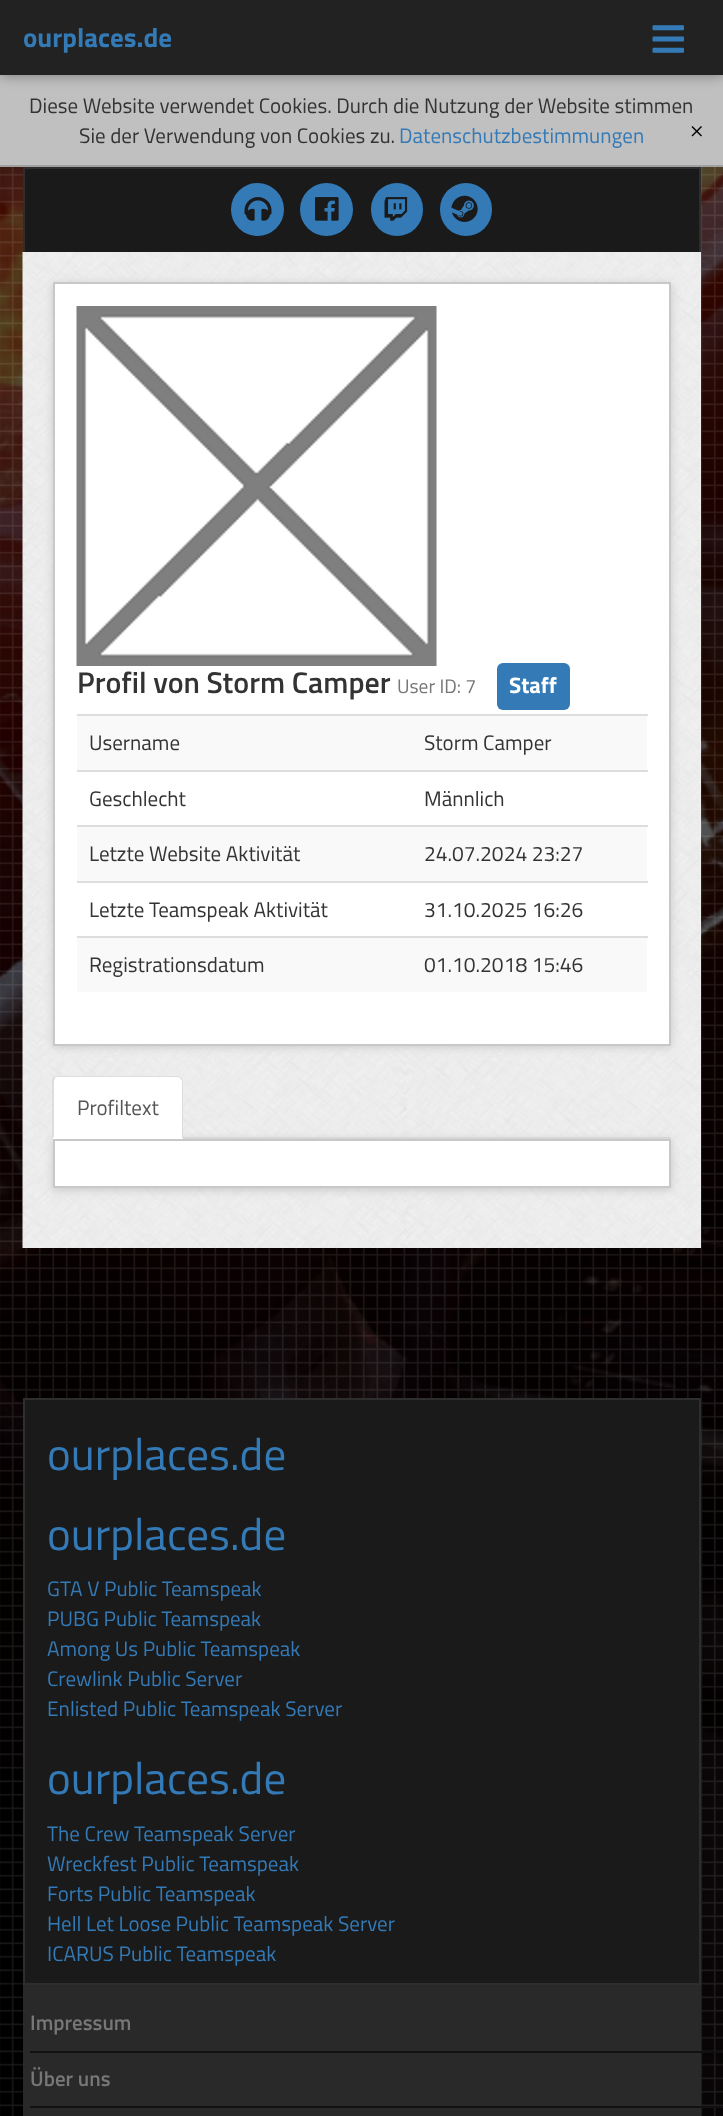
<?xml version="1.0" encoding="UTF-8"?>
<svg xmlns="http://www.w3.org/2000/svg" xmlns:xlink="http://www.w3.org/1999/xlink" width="723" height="2116">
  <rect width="100%" height="100%" fill="#000000" />
  <rect y="75" width="723" height="90" fill="#c0c0c0" />
  <rect y="2" width="723" height="75" fill="#000000" fill-opacity="0.3" filter="blur(6px)" />
  <rect width="723" height="75" fill="#222222" />
  <image x="652" y="25" width="32" height="28" xlink:href="image1.png" />
  <rect y="165" width="723" height="2" fill="#a0a0a0" />
  <path d="M 691.5 127 l 1 -1 l 9.5 9.5 l -1 1 z" fill="#000000" />
  <path d="M 701 126 l 1 1 l -9.5 9.5 l -1 -1 z" fill="#000000" />
  <image x="0" y="167" width="723" height="1949" xlink:href="image2.png" />
  <image x="0" y="167" width="723" height="1949" xlink:href="image3.png" />
  <rect x="25" y="169" width="674" height="83" fill="#1a1a1a" />
  <rect x="23" y="167" width="678" height="2" fill="#2e2e2e" />
  <rect x="699" y="167" width="2" height="85" fill="#2e2e2e" />
  <rect x="23" y="167" width="2" height="85" fill="#2e2e2e" />
  <circle cx="257.5" cy="209.5" r="26.5" fill="#337ab7" />
  <image x="244" y="197" width="28" height="24" xlink:href="image4.png" />
  <circle cx="326.5" cy="209.5" r="26.5" fill="#337ab7" />
  <image x="315" y="197" width="24" height="24" xlink:href="image5.png" />
  <rect x="371" y="183" width="52" height="53" rx="26" fill="#337ab7" />
  <image x="384" y="197" width="24" height="24" xlink:href="image6.png" />
  <rect x="440" y="183" width="52" height="53" rx="26" fill="#337ab7" />
  <image x="451" y="195" width="27" height="27" xlink:href="image7.png" />
  <rect x="700" y="252" width="1" height="996" fill="#f0f0f0" />
  <image x="22" y="252" width="679" height="996" xlink:href="image8.png" />
  <rect x="53" y="284" width="618" height="763" fill="#c8c8c8" filter="blur(4px)" />
  <rect x="54" y="283" width="616" height="762" fill="#ffffff" stroke="#c8c8c8" stroke-width="2" />
  <image x="76" y="306" width="361" height="360" xlink:href="image9.png" />
  <rect x="497" y="663" width="73" height="47" rx="6" fill="#337ab7" />
  <rect x="77" y="716" width="570" height="54" fill="#f9f9f9" />
  <rect x="77" y="714" width="571" height="2" fill="#dddddd" />
  <rect x="77" y="770" width="571" height="2" fill="#dddddd" />
  <rect x="77" y="827" width="570" height="54" fill="#f9f9f9" />
  <rect x="77" y="825" width="571" height="2" fill="#dddddd" />
  <rect x="77" y="881" width="571" height="2" fill="#dddddd" />
  <rect x="77" y="938" width="570" height="54" fill="#f9f9f9" />
  <rect x="77" y="936" width="571" height="2" fill="#dddddd" />
  <rect x="183" y="1137" width="488" height="2" fill="#dddddd" />
  <rect x="53" y="1140" width="618" height="50" fill="#c8c8c8" filter="blur(4px)" />
  <path d="M 59 1076 h 118 c 3.5 0 6 2.5 6 6 v 57 h -130 v -57 c 0 -3.5 2.5 -6 6 -6 z" fill="#ffffff" />
  <path d="M 58 1076 l -4 1 l 1 1 c 1 -1 2 -1 3 -1 h 119 c 1 0 2 0 3 1 l 1 -1 c -1 -1 -3 -1 -4 -1 z" fill="#dddddd" />
  <path d="M 181 1077 c 1 1 2 3 2 5 v 56 h -1 v -1 v -56 l -2 -3 z" fill="#dddddd" />
  <path d="M 52 1079 l 2 -2 l 1 1 c 0 1 -1 2 -1 4 v 55 l -2 1 z" fill="#dddddd" />
  <rect x="54" y="1140" width="616" height="47" fill="#ffffff" stroke="#c8c8c8" stroke-width="2" />
  <rect x="24" y="1399" width="676" height="585" fill="#1a1a1a" stroke="#2e2e2e" stroke-width="2" />
  <rect x="23" y="1985" width="678" height="131" fill="#292929" />
  <rect x="30" y="2051" width="693" height="2" fill="#111111" />
  <rect x="30" y="2106" width="693" height="2" fill="#111111" />
  <text x="23" y="47" style="font-family: Titillium Web; font-size: 27px; font-weight: bold; fill: #337ab7">ourplaces.de</text>
  <text x="29" y="113" style="font-family: Titillium Web; font-size: 21px; fill: #333333">Diese Website verwendet Cookies. Durch die Nutzung der Website stimmen</text>
  <text x="79" y="143" style="font-family: Titillium Web; font-size: 21px; fill: #333333">Sie der Verwendung von Cookies zu.</text>
  <text x="399" y="143" style="font-family: Titillium Web; font-size: 21px; fill: #337ab7">Datenschutzbestimmungen</text>
  <text x="77" y="693" style="font-family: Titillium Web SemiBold; font-size: 30px; font-weight: 600; fill: #333333">Profil von Storm Camper</text>
  <text x="397" y="693" style="font-family: Titillium Web; font-size: 19.5px; fill: #777777">User ID: 7</text>
  <text x="509" y="693" style="font-family: Titillium Web; font-size: 22.5px; font-weight: bold; fill: #ffffff">Staff</text>
  <text x="89" y="750" style="font-family: Titillium Web; font-size: 21px; fill: #333333">Username</text>
  <text x="424" y="750" style="font-family: Titillium Web; font-size: 21px; fill: #333333">Storm Camper</text>
  <text x="89" y="806" style="font-family: Titillium Web; font-size: 21px; fill: #333333">Geschlecht</text>
  <text x="424" y="806" style="font-family: Titillium Web; font-size: 21px; fill: #333333">Männlich</text>
  <text x="89" y="861" style="font-family: Titillium Web; font-size: 21px; fill: #333333">Letzte Website Aktivität</text>
  <text x="424" y="861" style="font-family: Titillium Web; font-size: 21px; fill: #333333">24.07.2024 23:27</text>
  <text x="89" y="917" style="font-family: Titillium Web; font-size: 21px; fill: #333333">Letzte Teamspeak Aktivität</text>
  <text x="424" y="917" style="font-family: Titillium Web; font-size: 21px; fill: #333333">31.10.2025 16:26</text>
  <text x="89" y="972" style="font-family: Titillium Web; font-size: 21px; fill: #333333">Registrationsdatum</text>
  <text x="424" y="972" style="font-family: Titillium Web; font-size: 21px; fill: #333333">01.10.2018 15:46</text>
  <text x="77" y="1115" style="font-family: Titillium Web; font-size: 21px; fill: #555555">Profiltext</text>
  <text x="47" y="1470" style="font-family: Titillium Web; font-size: 45px; fill: #337ab7">ourplaces.de</text>
  <text x="47" y="1550" style="font-family: Titillium Web; font-size: 45px; fill: #337ab7">ourplaces.de</text>
  <text x="47" y="1596" style="font-family: Titillium Web; font-size: 21px; fill: #337ab7">GTA V Public Teamspeak</text>
  <text x="47" y="1626" style="font-family: Titillium Web; font-size: 21px; fill: #337ab7">PUBG Public Teamspeak</text>
  <text x="47" y="1656" style="font-family: Titillium Web; font-size: 21px; fill: #337ab7">Among Us Public Teamspeak</text>
  <text x="47" y="1686" style="font-family: Titillium Web; font-size: 21px; fill: #337ab7">Crewlink Public Server</text>
  <text x="47" y="1716" style="font-family: Titillium Web; font-size: 21px; fill: #337ab7">Enlisted Public Teamspeak Server</text>
  <text x="47" y="1794" style="font-family: Titillium Web; font-size: 45px; fill: #337ab7">ourplaces.de</text>
  <text x="47" y="1841" style="font-family: Titillium Web; font-size: 21px; fill: #337ab7">The Crew Teamspeak Server</text>
  <text x="47" y="1871" style="font-family: Titillium Web; font-size: 21px; fill: #337ab7">Wreckfest Public Teamspeak</text>
  <text x="47" y="1901" style="font-family: Titillium Web; font-size: 21px; fill: #337ab7">Forts Public Teamspeak</text>
  <text x="47" y="1931" style="font-family: Titillium Web; font-size: 21px; fill: #337ab7">Hell Let Loose Public Teamspeak Server</text>
  <text x="47" y="1961" style="font-family: Titillium Web; font-size: 21px; fill: #337ab7">ICARUS Public Teamspeak</text>
  <text x="30" y="2030" style="font-family: Titillium Web SemiBold; font-size: 21px; font-weight: 600; fill: #777777">Impressum</text>
  <text x="30" y="2086" style="font-family: Titillium Web SemiBold; font-size: 21px; font-weight: 600; fill: #777777">Über uns</text>
</svg>
